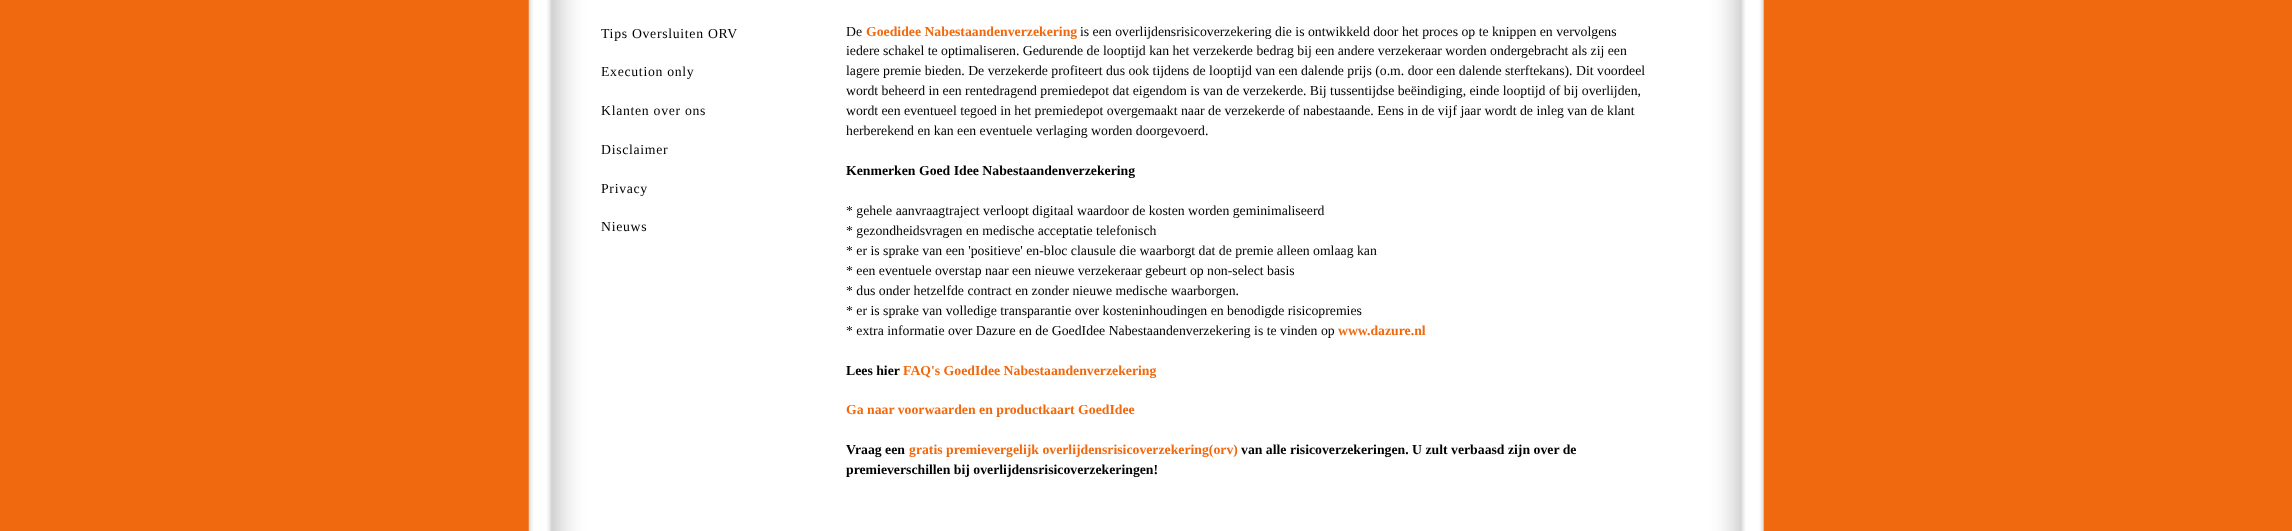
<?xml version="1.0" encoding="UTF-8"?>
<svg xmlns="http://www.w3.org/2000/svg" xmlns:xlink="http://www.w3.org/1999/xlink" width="2292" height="531">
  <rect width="100%" height="100%" fill="#f1690f" />
  <image x="528" y="0" width="1236" height="531" xlink:href="image1.png" />
  <text x="601" y="38" style="font-family: Liberation Serif; font-size: 13.75px; letter-spacing: 0.7px; fill: #000000">Tips Oversluiten ORV</text>
  <text x="601" y="76" style="font-family: Liberation Serif; font-size: 13.75px; letter-spacing: 0.7px; fill: #000000">Execution only</text>
  <text x="601" y="115" style="font-family: Liberation Serif; font-size: 13.75px; letter-spacing: 0.7px; fill: #000000">Klanten over ons</text>
  <text x="601" y="154" style="font-family: Liberation Serif; font-size: 13.75px; letter-spacing: 0.7px; fill: #000000">Disclaimer</text>
  <text x="601" y="193" style="font-family: Liberation Serif; font-size: 13.75px; letter-spacing: 0.7px; fill: #000000">Privacy</text>
  <text x="601" y="231" style="font-family: Liberation Serif; font-size: 13.75px; letter-spacing: 0.7px; fill: #000000">Nieuws</text>
  <text x="846" y="36" style="font-family: Liberation Serif; font-size: 13.75px; fill: #000000">De</text>
  <text x="866" y="36" style="font-family: Liberation Serif; font-size: 13.75px; font-weight: bold; fill: #f1690f">Goedidee Nabestaandenverzekering</text>
  <text x="1080" y="36" style="font-family: Liberation Serif; font-size: 13.75px; fill: #000000">is een overlijdensrisicoverzekering die is ontwikkeld door het proces op te knippen en vervolgens</text>
  <text x="846" y="55" style="font-family: Liberation Serif; font-size: 13.75px; fill: #000000">iedere schakel te optimaliseren. Gedurende de looptijd kan het verzekerde bedrag bij een andere verzekeraar worden ondergebracht als zij een</text>
  <text x="846" y="75" style="font-family: Liberation Serif; font-size: 13.75px; fill: #000000">lagere premie bieden. De verzekerde profiteert dus ook tijdens de looptijd van een dalende prijs (o.m. door een dalende sterftekans). Dit voordeel</text>
  <text x="846" y="95" style="font-family: Liberation Serif; font-size: 13.75px; fill: #000000">wordt beheerd in een rentedragend premiedepot dat eigendom is van de verzekerde. Bij tussentijdse beëindiging, einde looptijd of bij overlijden,</text>
  <text x="846" y="115" style="font-family: Liberation Serif; font-size: 13.75px; fill: #000000">wordt een eventueel tegoed in het premiedepot overgemaakt naar de verzekerde of nabestaande. Eens in de vijf jaar wordt de inleg van de klant</text>
  <text x="846" y="135" style="font-family: Liberation Serif; font-size: 13.75px; fill: #000000">herberekend en kan een eventuele verlaging worden doorgevoerd.</text>
  <text x="846" y="175" style="font-family: Liberation Serif; font-size: 13.75px; font-weight: bold; fill: #000000">Kenmerken Goed Idee Nabestaandenverzekering</text>
  <text x="846" y="215" style="font-family: Liberation Serif; font-size: 13.75px; fill: #000000">* gehele aanvraagtraject verloopt digitaal waardoor de kosten worden geminimaliseerd</text>
  <text x="846" y="235" style="font-family: Liberation Serif; font-size: 13.75px; fill: #000000">* gezondheidsvragen en medische acceptatie telefonisch</text>
  <text x="846" y="255" style="font-family: Liberation Serif; font-size: 13.75px; fill: #000000">* er is sprake van een 'positieve' en-bloc clausule die waarborgt dat de premie alleen omlaag kan</text>
  <text x="846" y="275" style="font-family: Liberation Serif; font-size: 13.75px; fill: #000000">* een eventuele overstap naar een nieuwe verzekeraar gebeurt op non-select basis</text>
  <text x="846" y="295" style="font-family: Liberation Serif; font-size: 13.75px; fill: #000000">* dus onder hetzelfde contract en zonder nieuwe medische waarborgen.</text>
  <text x="846" y="315" style="font-family: Liberation Serif; font-size: 13.75px; fill: #000000">* er is sprake van volledige transparantie over kosteninhoudingen en benodigde risicopremies</text>
  <text x="846" y="335" style="font-family: Liberation Serif; font-size: 13.75px; fill: #000000">* extra informatie over Dazure en de GoedIdee Nabestaandenverzekering is te vinden op</text>
  <text x="1338" y="335" style="font-family: Liberation Serif; font-size: 13.75px; font-weight: bold; fill: #f1690f">www.dazure.nl</text>
  <text x="846" y="375" style="font-family: Liberation Serif; font-size: 13.75px; font-weight: bold; fill: #000000">Lees hier</text>
  <text x="903" y="375" style="font-family: Liberation Serif; font-size: 13.75px; font-weight: bold; fill: #f1690f">FAQ's GoedIdee Nabestaandenverzekering</text>
  <text x="846" y="414" style="font-family: Liberation Serif; font-size: 13.75px; font-weight: bold; fill: #f1690f">Ga naar voorwaarden en productkaart GoedIdee</text>
  <text x="846" y="454" style="font-family: Liberation Serif; font-size: 13.75px; font-weight: bold; fill: #000000">Vraag een</text>
  <text x="909" y="454" style="font-family: Liberation Serif; font-size: 13.75px; font-weight: bold; fill: #f1690f">gratis premievergelijk overlijdensrisicoverzekering(orv)</text>
  <text x="1241" y="454" style="font-family: Liberation Serif; font-size: 13.75px; font-weight: bold; fill: #000000">van alle risicoverzekeringen. U zult verbaasd zijn over de</text>
  <text x="846" y="474" style="font-family: Liberation Serif; font-size: 13.75px; font-weight: bold; fill: #000000">premieverschillen bij overlijdensrisicoverzekeringen!</text>
</svg>
